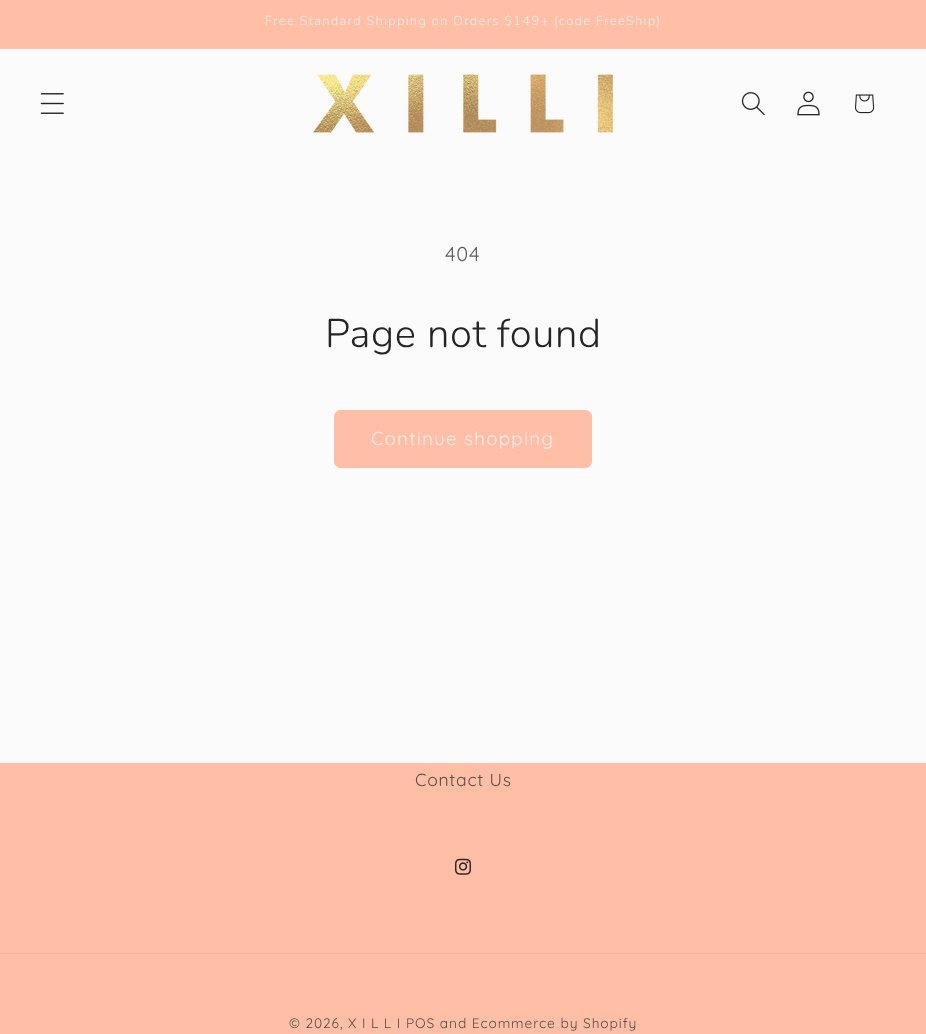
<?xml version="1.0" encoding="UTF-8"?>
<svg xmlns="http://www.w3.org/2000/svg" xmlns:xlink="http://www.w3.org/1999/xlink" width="926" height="1034">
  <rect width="100%" height="100%" fill="#fbfbfb" />
  <rect width="926" height="48" fill="#ffbfa6" />
  <rect y="48" width="926" height="1" fill="#fec3ac" />
  <image x="40" y="93" width="24" height="21" xlink:href="image1.png" />
  <image x="313" y="74" width="300" height="59" xlink:href="image2.png" />
  <image x="741" y="92" width="24" height="24" xlink:href="image3.png" />
  <image x="797" y="91" width="23" height="25" xlink:href="image4.png" />
  <image x="855" y="94" width="20" height="20" xlink:href="image5.png" />
  <rect x="334" y="410" width="258" height="58" rx="7" fill="#ffbfa6" />
  <rect x="334.5" y="410.5" width="257" height="57" rx="6.5" fill="none" stroke="#ffbfa6" />
  <rect y="763" width="926" height="271" fill="#ffbfa6" />
  <image x="455" y="858" width="16" height="17" xlink:href="image6.png" />
  <rect y="953" width="926" height="1" fill="#eeb39c" />
  <text x="265" y="25" style="font-family: Nunito; font-size: 13px; font-weight: 300; letter-spacing: 1.25px; fill: #efecec">Free Standard Shipping on Orders $149+ (code FreeShip)</text>
  <text x="445" y="261" style="font-family: Quicksand; font-size: 20px; letter-spacing: 0.75px; fill: #5b5b5b">404</text>
  <text x="325" y="347" style="font-family: Nunito; font-size: 40px; font-weight: 300; letter-spacing: 0.6px; fill: #252525">Page not found</text>
  <text x="371" y="445" style="font-family: Quicksand; font-size: 18.75px; letter-spacing: 1.25px; fill: #efecec">Continue shopping</text>
  <text x="415" y="786" style="font-family: Quicksand; font-size: 17.5px; letter-spacing: 0.75px; fill: #5c4c45">Contact Us</text>
  <text x="289" y="1028" style="font-family: Quicksand; font-size: 13.75px; letter-spacing: 0.9px; fill: #5c4c45">© 2026, X I L L I</text>
  <text x="406" y="1028" style="font-family: Quicksand; font-size: 13.75px; letter-spacing: 0.9px; fill: #5c4c45">POS and Ecommerce by Shopify</text>
</svg>
